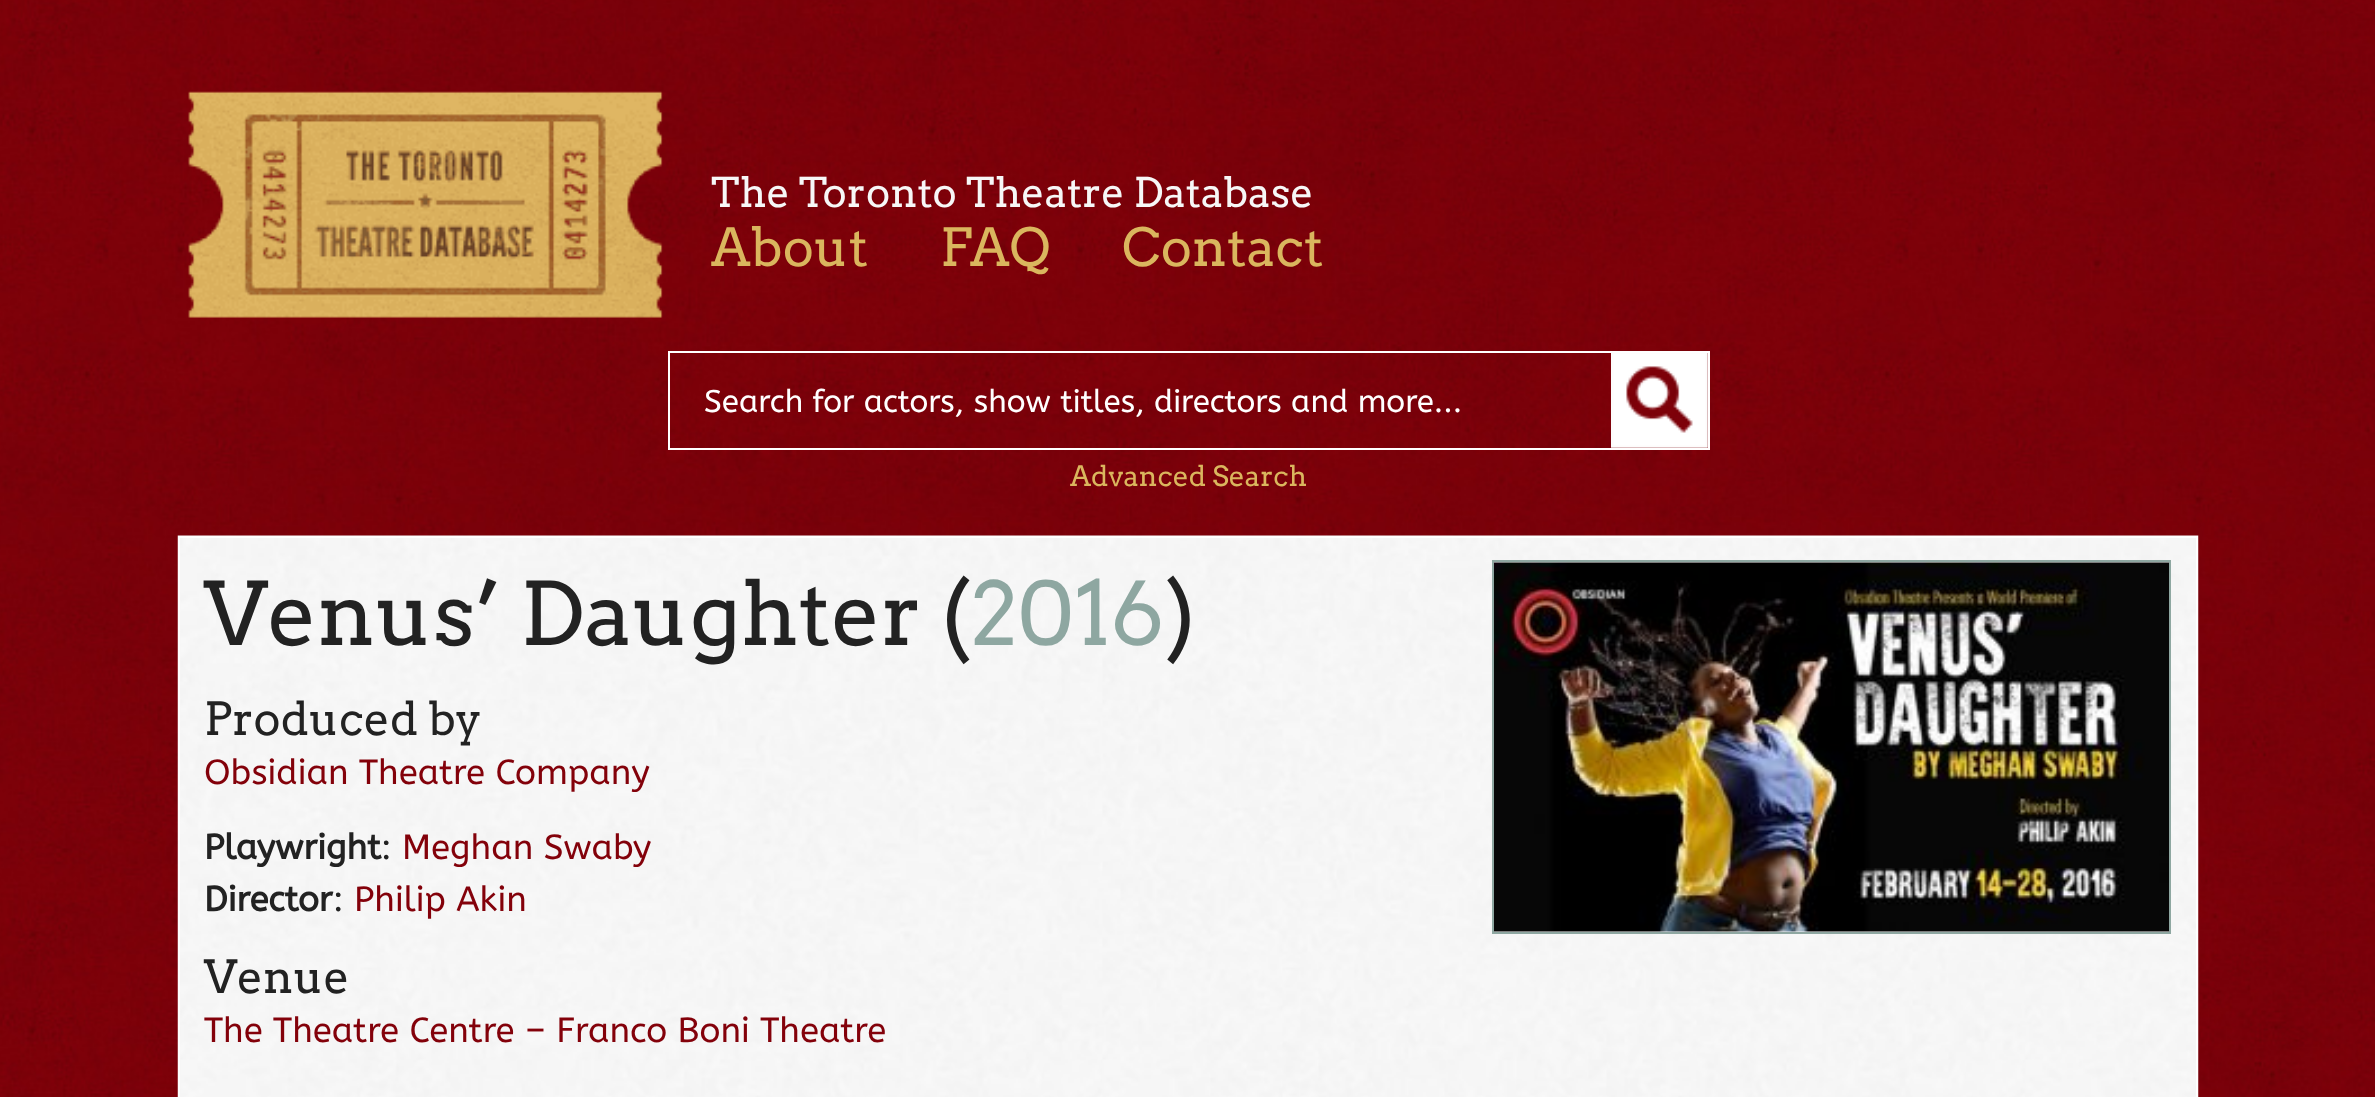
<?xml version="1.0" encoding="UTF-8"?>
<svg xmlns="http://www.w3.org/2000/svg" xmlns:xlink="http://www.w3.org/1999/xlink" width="2375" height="1097">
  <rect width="100%" height="100%" fill="#ffffff" />
  <image x="0" y="0" width="2375" height="1097" xlink:href="image1.png" />
  <image x="188" y="91" width="475" height="227" xlink:href="image2.png" />
  <image x="1611" y="353" width="97" height="95" xlink:href="image3.png" />
  <rect x="669" y="352" width="1040" height="97" fill="none" stroke="#ffffff" stroke-width="2" />
  <image x="177" y="535" width="2022" height="562" xlink:href="image4.png" />
  <rect x="179" y="537" width="2018" height="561" fill="none" stroke="#ffffff" stroke-width="2" />
  <rect x="1493" y="561" width="677" height="372" fill="none" stroke="#8ea7a1" stroke-width="2" />
  <image x="1494" y="562" width="675" height="370" xlink:href="image5.png" />
  <text x="711" y="207" style="font-family: Arvo; font-size: 40.75px; fill: #f7f7f7">The Toronto Theatre Database</text>
  <text x="711" y="266" style="font-family: Arvo; font-size: 52.5px; fill: #dab65e">About</text>
  <text x="940" y="266" style="font-family: Arvo; font-size: 52.5px; fill: #dab65e">FAQ</text>
  <text x="1122" y="266" style="font-family: Arvo; font-size: 52.5px; fill: #dab65e">Contact</text>
  <text x="704" y="412" style="font-family: ABeeZee; font-size: 31.4px; fill: #ffffff">Search for actors, show titles, directors and more...</text>
  <text x="1070" y="486" style="font-family: Arvo; font-size: 28px; fill: #dab65e">Advanced Search</text>
  <text x="204" y="645" style="font-family: Arvo; font-size: 87.25px; fill: #222222">Venus’ Daughter (</text>
  <text x="971" y="645" style="font-family: Arvo; font-size: 87.25px; fill: #8ea7a1">2016</text>
  <text x="1165" y="645" style="font-family: Arvo; font-size: 87.25px; fill: #222222">)</text>
  <text x="204" y="735" style="font-family: Arvo; font-size: 45.5px; fill: #222222">Produced by</text>
  <text x="204" y="784" style="font-family: ABeeZee; font-size: 34.9px; fill: #83010a">Obsidian Theatre Company</text>
  <text x="204" y="859" style="font-family: ABeeZee; font-size: 34.9px; font-weight: bold; fill: #222222">Playwright</text>
  <text x="381" y="859" style="font-family: ABeeZee; font-size: 34.9px; fill: #222222">:</text>
  <text x="402" y="859" style="font-family: ABeeZee; font-size: 34.9px; fill: #83010a">Meghan Swaby</text>
  <text x="204" y="911" style="font-family: ABeeZee; font-size: 34.9px; font-weight: bold; fill: #222222">Director</text>
  <text x="333" y="911" style="font-family: ABeeZee; font-size: 34.9px; fill: #222222">:</text>
  <text x="354" y="911" style="font-family: ABeeZee; font-size: 34.9px; fill: #83010a">Philip Akin</text>
  <text x="204" y="993" style="font-family: Arvo; font-size: 45.5px; fill: #222222">Venue</text>
  <text x="204" y="1042" style="font-family: ABeeZee; font-size: 34.9px; fill: #83010a">The Theatre Centre – Franco Boni Theatre</text>
</svg>
